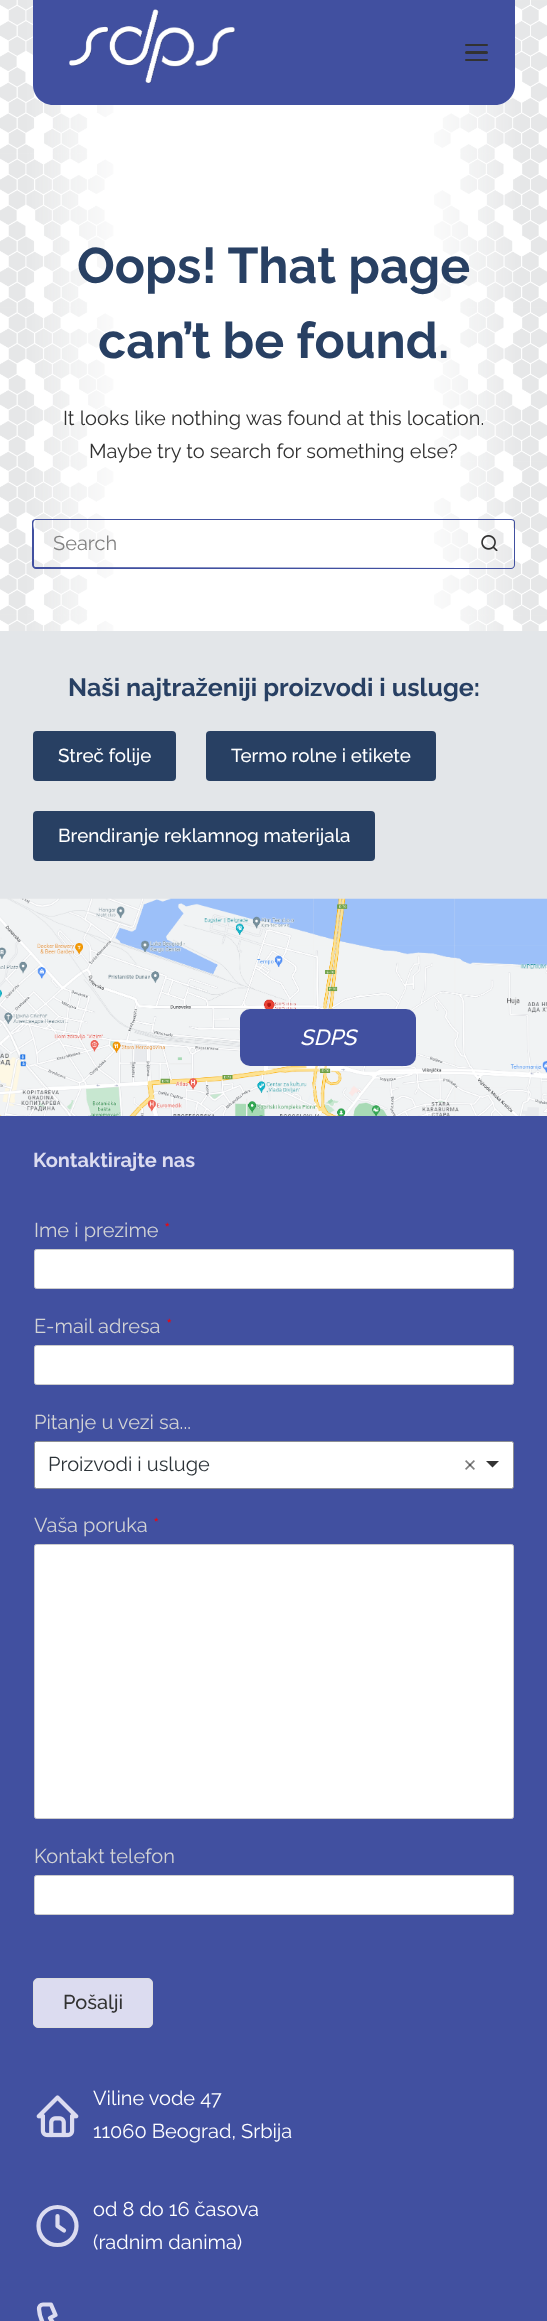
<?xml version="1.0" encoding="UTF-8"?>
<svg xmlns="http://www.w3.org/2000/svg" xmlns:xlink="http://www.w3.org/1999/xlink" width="547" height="2321">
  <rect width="100%" height="100%" fill="#ffffff" />
  <image x="0" y="0" width="547" height="631" xlink:href="image1.png" />
  <path d="M 33 0 h 482 v 85 c 0 11 -9 20 -20 20 h -442 c -11 0 -20 -9 -20 -20 z" fill="#4150a0" />
  <image x="69" y="9" width="167" height="75" xlink:href="image2.png" />
  <rect x="465" y="44" width="23" height="2" rx="1" fill="#323232" />
  <rect x="465" y="51" width="23" height="3" rx="1.5" fill="#323232" />
  <rect x="465" y="59" width="23" height="2" rx="1" fill="#323232" />
  <path d="M 36 519 h 429 v 50 h -429 c -2 0 -4 -2 -4 -4 v -43 c 0 -2 2 -3 4 -3 z m 0 1 h 429 v 48 l -430 -1 l -1 -1 v -36 c 0 -1 -2 -8 1 -10 z" fill="#4150a0" fill-rule="evenodd" />
  <path d="M 465 519 h 46 c 2 0 4 1 4 3 v 43 c 0 2 -2 4 -4 4 h -46 z m 0 1 h 46 c 2 0 3 1 3 2 v 43 c 0 1 -1 3 -3 3 h -46 z" fill="#4150a0" fill-rule="evenodd" />
  <image x="481" y="535" width="17" height="16" xlink:href="image3.png" />
  <rect y="631" width="547" height="268" fill="#e3e6e9" />
  <rect x="33" y="731" width="143" height="50" rx="4" fill="#284063" />
  <rect x="206" y="731" width="230" height="50" rx="4" fill="#284063" />
  <rect x="33" y="811" width="342" height="50" rx="4" fill="#284063" />
  <image x="0" y="898" width="547" height="218" xlink:href="image4.png" />
  <rect x="240" y="1009" width="176" height="57" rx="10" fill="#4150a0" />
  <rect y="1116" width="547" height="1205" fill="#4150a0" />
  <rect x="34.5" y="1249.5" width="479" height="39" rx="2" fill="#ffffff" stroke="#cccccc" />
  <rect x="34.5" y="1345.5" width="479" height="39" rx="2" fill="#ffffff" stroke="#cccccc" />
  <rect x="34.5" y="1441.5" width="479" height="47" rx="2" fill="#ffffff" stroke="#8c8f94" />
  <image x="465" y="1460" width="10" height="10" xlink:href="image5.png" />
  <path d="M 486 1461 h 13 l -6.5 6.5 z" fill="#333333" />
  <rect x="34.5" y="1544.5" width="479" height="274" rx="2" fill="#ffffff" stroke="#cccccc" />
  <rect x="34.5" y="1875.5" width="479" height="39" rx="2" fill="#ffffff" stroke="#cccccc" />
  <rect x="33.5" y="1978.5" width="119" height="49" rx="4.5" fill="#dcdcf0" stroke="#dddddd" />
  <image x="36" y="2095" width="43" height="43" xlink:href="image6.png" />
  <circle cx="57.5" cy="2226" r="19" fill="none" stroke="#dcdcf0" stroke-width="4.2" />
  <path d="M 57.5 2226 l 6.5 4.5 m -6.5 -14.5 v 10" fill="none" stroke="#dcdcf0" stroke-width="4.2" stroke-linecap="round" stroke-linejoin="round" />
  <path d="M 43 2304.5 h 8 l 4.5 10.5 l -5.5 3 c 2.5 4.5 6 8.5 10.5 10.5 l 3.5 -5 l 10 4 v 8.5 c 0 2 -1.5 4 -4 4 c -17 -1 -30 -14.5 -31 -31 c 0 -2.5 1.5 -4.5 4 -4.5" fill="none" stroke="#dcdcf0" stroke-width="4.2" stroke-linecap="round" stroke-linejoin="round" />
  <text x="77" y="283" style="font-family: Raleway; font-size: 50px; font-weight: bold; fill: #284063">Oops! That page</text>
  <text x="98" y="358" style="font-family: Raleway; font-size: 50px; font-weight: bold; fill: #284063">can’t be found.</text>
  <text x="63" y="425" style="font-family: Raleway; font-size: 20px; fill: #323232">It looks like nothing was found at this location.</text>
  <text x="89" y="458" style="font-family: Raleway; font-size: 20px; fill: #323232">Maybe try to search for something else?</text>
  <text x="53" y="550" style="font-family: Raleway; font-size: 20px; fill: #828282">Search</text>
  <text x="68" y="696" style="font-family: Raleway; font-size: 25px; font-weight: bold; fill: #284063">Naši najtraženiji proizvodi i usluge:</text>
  <text x="58" y="762" style="font-family: Raleway; font-size: 18.75px; font-weight: 500; fill: #ffffff">Streč folije</text>
  <text x="231" y="762" style="font-family: Raleway; font-size: 18.75px; font-weight: 500; fill: #ffffff">Termo rolne i etikete</text>
  <text x="58" y="842" style="font-family: Raleway; font-size: 18.75px; font-weight: 500; fill: #ffffff">Brendiranje reklamnog materijala</text>
  <text x="300" y="1045" style="font-family: Raleway; font-size: 22px; font-weight: 500; font-style: italic; fill: #ffffff">SDPS</text>
  <text x="33" y="1167" style="font-family: Raleway; font-size: 20px; font-weight: bold; fill: #dcdcf0">Kontaktirajte nas</text>
  <text x="34" y="1237" style="font-family: Raleway; font-size: 20px; fill: #d2d3d5">Ime i prezime</text>
  <text x="164" y="1237" style="font-family: Raleway; font-size: 20px; fill: #ff0000">*</text>
  <text x="34" y="1333" style="font-family: Raleway; font-size: 20px; fill: #d2d3d5">E-mail adresa</text>
  <text x="166" y="1333" style="font-family: Raleway; font-size: 20px; fill: #ff0000">*</text>
  <text x="34" y="1429" style="font-family: Raleway; font-size: 20px; fill: #d2d3d5">Pitanje u vezi sa...</text>
  <text x="48" y="1471" style="font-family: Raleway; font-size: 20px; fill: #2c3338">Proizvodi i usluge</text>
  <text x="34" y="1532" style="font-family: Raleway; font-size: 20px; fill: #d2d3d5">Vaša poruka</text>
  <text x="153" y="1532" style="font-family: Raleway; font-size: 20px; fill: #ff0000">*</text>
  <text x="34" y="1863" style="font-family: Raleway; font-size: 20px; fill: #d2d3d5">Kontakt telefon</text>
  <text x="63" y="2009" style="font-family: Raleway; font-size: 20px; font-weight: 500; fill: #323232">Pošalji</text>
  <text x="93" y="2105" style="font-family: Raleway; font-size: 20px; fill: #ffffff">Viline vode 47</text>
  <text x="93" y="2138" style="font-family: Raleway; font-size: 20px; fill: #ffffff">11060 Beograd, Srbija</text>
  <text x="93" y="2216" style="font-family: Raleway; font-size: 20px; fill: #ffffff">od 8 do 16 časova</text>
  <text x="93" y="2249" style="font-family: Raleway; font-size: 20px; fill: #ffffff">(radnim danima)</text>
</svg>
